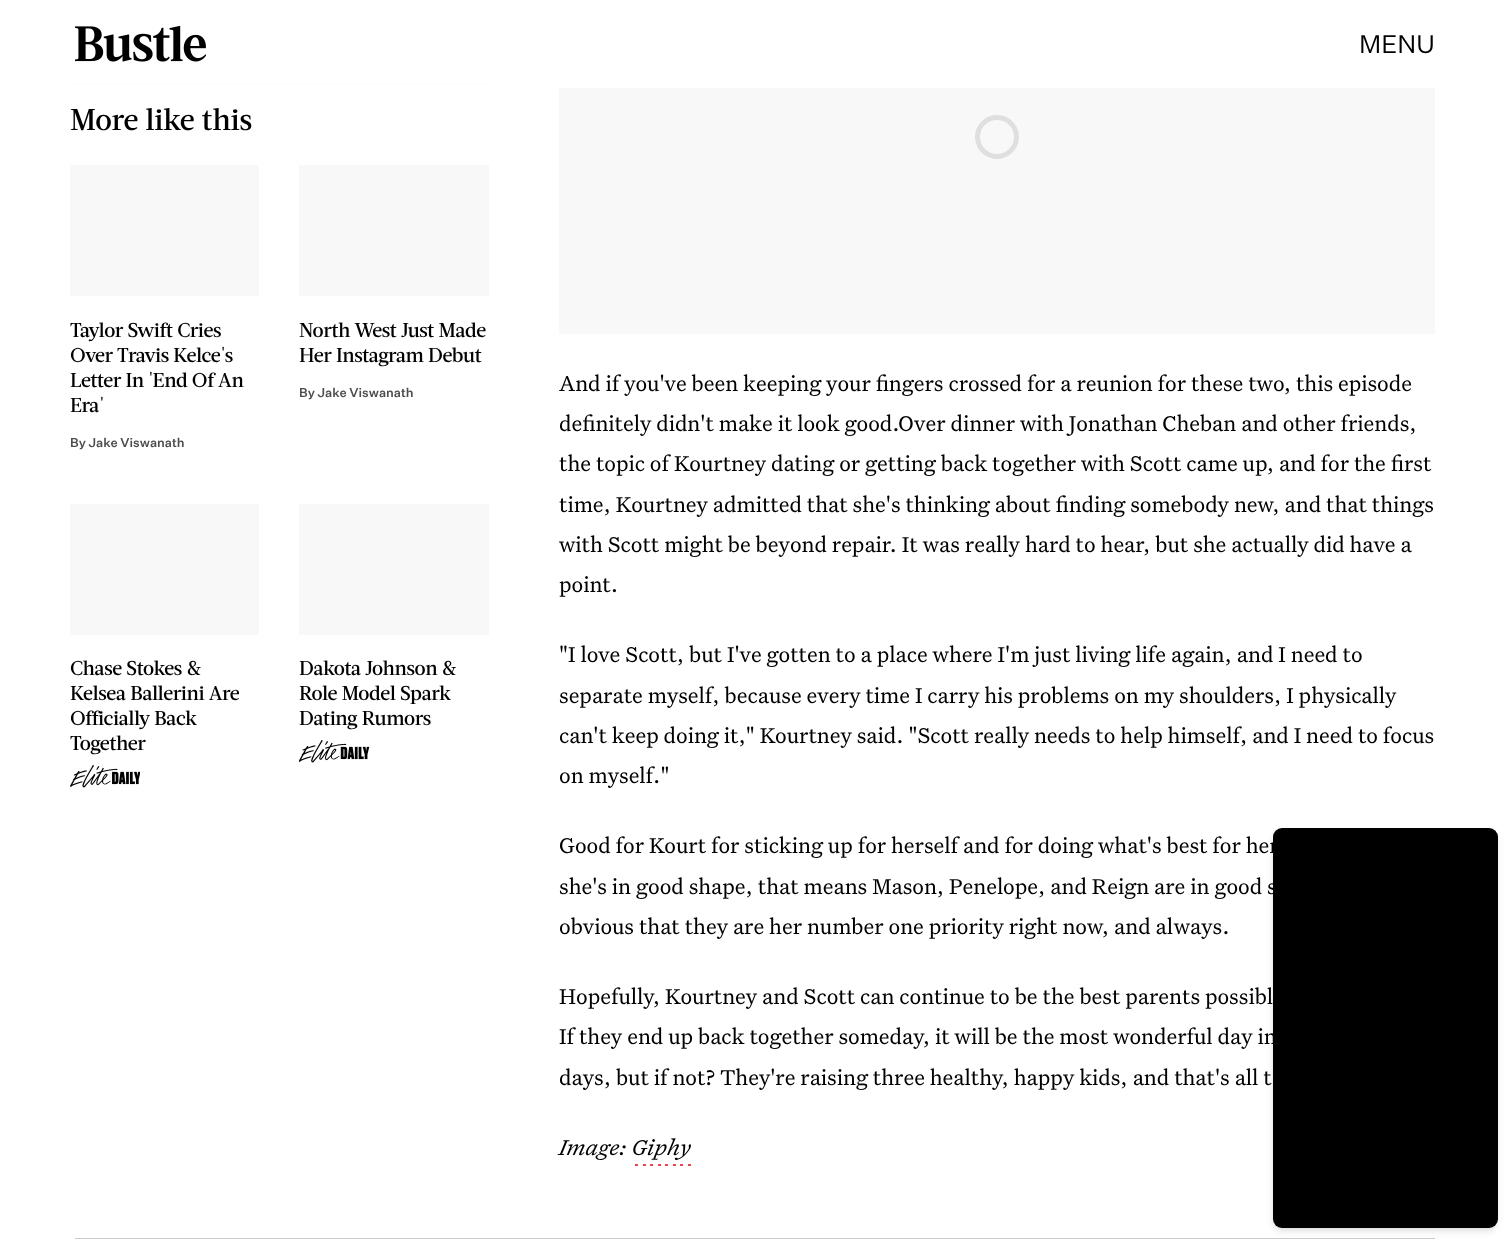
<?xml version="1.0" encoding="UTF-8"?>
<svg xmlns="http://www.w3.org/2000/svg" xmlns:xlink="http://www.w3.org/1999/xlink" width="1509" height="1240">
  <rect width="100%" height="100%" fill="#ffffff" />
  <image x="75" y="25" width="131" height="37" xlink:href="image1.png" />
  <rect x="70" y="83" width="419" height="1" fill="#fcfcfc" />
  <rect x="70" y="165" width="189" height="131" fill="#f8f8f8" />
  <rect x="299" y="165" width="190" height="131" fill="#f8f8f8" />
  <rect x="70" y="504" width="189" height="131" fill="#f8f8f8" />
  <image x="70" y="765" width="70" height="23" xlink:href="image2.png" />
  <rect x="299" y="504" width="190" height="131" fill="#f8f8f8" />
  <image x="299" y="740" width="71" height="23" xlink:href="image3.png" />
  <rect x="559" y="88" width="876" height="246" fill="#f8f8f8" />
  <circle cx="997" cy="137" r="19.5" fill="none" stroke="#dfdfdf" stroke-width="5" />
  <rect x="635" y="1164" width="3" height="2" fill="#e9474b" />
  <rect x="643" y="1164" width="3" height="2" fill="#e9474b" />
  <rect x="650" y="1164" width="3" height="2" fill="#e9474b" />
  <rect x="658" y="1164" width="3" height="2" fill="#e9474b" />
  <rect x="665" y="1164" width="3" height="2" fill="#e9474b" />
  <rect x="673" y="1164" width="3" height="2" fill="#e9474b" />
  <rect x="680" y="1164" width="3" height="2" fill="#e9474b" />
  <rect x="688" y="1164" width="3" height="2" fill="#e9474b" />
  <rect x="1275" y="833" width="220" height="395" rx="6" fill="#000000" fill-opacity="0.1" filter="blur(2.5px)" />
  <rect x="75" y="1238" width="1360" height="1" fill="#cccccc" />
  <rect x="1274" y="834" width="222" height="397" rx="8" fill="#000000" fill-opacity="0.1" filter="blur(4px)" />
  <rect x="1273" y="828" width="225" height="400" rx="9" fill="#000000" />
  <text x="1359" y="53" style="font-family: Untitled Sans; font-size: 25px; fill: #000000">MENU</text>
  <text x="70" y="130" style="font-family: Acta; font-size: 30px; font-weight: 500; fill: #000000">More like this</text>
  <text x="70" y="337" style="font-family: Acta; font-size: 20px; font-weight: 500; letter-spacing: -0.25px; fill: #000000">Taylor Swift Cries</text>
  <text x="70" y="362" style="font-family: Acta; font-size: 20px; font-weight: 500; letter-spacing: -0.25px; fill: #000000">Over Travis Kelce's</text>
  <text x="70" y="387" style="font-family: Acta; font-size: 20px; font-weight: 500; letter-spacing: -0.25px; fill: #000000">Letter In 'End Of An</text>
  <text x="70" y="412" style="font-family: Acta; font-size: 20px; font-weight: 500; letter-spacing: -0.25px; fill: #000000">Era'</text>
  <text x="70" y="447" style="font-family: Untitled Sans; font-size: 12.5px; font-weight: 500; fill: #4d4d4d">By Jake Viswanath</text>
  <text x="299" y="337" style="font-family: Acta; font-size: 20px; font-weight: 500; letter-spacing: -0.25px; fill: #000000">North West Just Made</text>
  <text x="299" y="362" style="font-family: Acta; font-size: 20px; font-weight: 500; letter-spacing: -0.25px; fill: #000000">Her Instagram Debut</text>
  <text x="299" y="397" style="font-family: Untitled Sans; font-size: 12.5px; font-weight: 500; fill: #4d4d4d">By Jake Viswanath</text>
  <text x="70" y="675" style="font-family: Acta; font-size: 20px; font-weight: 500; letter-spacing: -0.25px; fill: #000000">Chase Stokes &amp;</text>
  <text x="70" y="700" style="font-family: Acta; font-size: 20px; font-weight: 500; letter-spacing: -0.25px; fill: #000000">Kelsea Ballerini Are</text>
  <text x="70" y="725" style="font-family: Acta; font-size: 20px; font-weight: 500; letter-spacing: -0.25px; fill: #000000">Officially Back</text>
  <text x="70" y="750" style="font-family: Acta; font-size: 20px; font-weight: 500; letter-spacing: -0.25px; fill: #000000">Together</text>
  <text x="299" y="675" style="font-family: Acta; font-size: 20px; font-weight: 500; letter-spacing: -0.25px; fill: #000000">Dakota Johnson &amp;</text>
  <text x="299" y="700" style="font-family: Acta; font-size: 20px; font-weight: 500; letter-spacing: -0.25px; fill: #000000">Role Model Spark</text>
  <text x="299" y="725" style="font-family: Acta; font-size: 20px; font-weight: 500; letter-spacing: -0.25px; fill: #000000">Dating Rumors</text>
  <text x="559" y="391" style="font-family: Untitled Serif; font-size: 23px; fill: #000000">And if you've been keeping your fingers crossed for a reunion for these two, this episode</text>
  <text x="559" y="431" style="font-family: Untitled Serif; font-size: 23px; fill: #000000">definitely didn't make it look good.Over dinner with Jonathan Cheban and other friends,</text>
  <text x="559" y="471" style="font-family: Untitled Serif; font-size: 23px; fill: #000000">the topic of Kourtney dating or getting back together with Scott came up, and for the first</text>
  <text x="559" y="512" style="font-family: Untitled Serif; font-size: 23px; fill: #000000">time, Kourtney admitted that she's thinking about finding somebody new, and that things</text>
  <text x="559" y="552" style="font-family: Untitled Serif; font-size: 23px; fill: #000000">with Scott might be beyond repair. It was really hard to hear, but she actually did have a</text>
  <text x="559" y="592" style="font-family: Untitled Serif; font-size: 23px; fill: #000000">point.</text>
  <text x="559" y="662" style="font-family: Untitled Serif; font-size: 23px; fill: #000000">"I love Scott, but I've gotten to a place where I'm just living life again, and I need to</text>
  <text x="559" y="703" style="font-family: Untitled Serif; font-size: 23px; fill: #000000">separate myself, because every time I carry his problems on my shoulders, I physically</text>
  <text x="559" y="743" style="font-family: Untitled Serif; font-size: 23px; fill: #000000">can't keep doing it," Kourtney said. "Scott really needs to help himself, and I need to focus</text>
  <text x="559" y="783" style="font-family: Untitled Serif; font-size: 23px; fill: #000000">on myself."</text>
  <text x="559" y="853" style="font-family: Untitled Serif; font-size: 23px; fill: #000000">Good for Kourt for sticking up for herself and for doing what's best for her</text>
  <text x="559" y="894" style="font-family: Untitled Serif; font-size: 23px; fill: #000000">she's in good shape, that means Mason, Penelope, and Reign are in good s</text>
  <text x="559" y="934" style="font-family: Untitled Serif; font-size: 23px; fill: #000000">obvious that they are her number one priority right now, and always.</text>
  <text x="559" y="1004" style="font-family: Untitled Serif; font-size: 23px; fill: #000000">Hopefully, Kourtney and Scott can continue to be the best parents possibl</text>
  <text x="559" y="1044" style="font-family: Untitled Serif; font-size: 23px; fill: #000000">If they end up back together someday, it will be the most wonderful day in</text>
  <text x="559" y="1085" style="font-family: Untitled Serif; font-size: 23px; fill: #000000">days, but if not? They're raising three healthy, happy kids, and that's all t</text>
  <text x="559" y="1155" style="font-family: Untitled Serif; font-size: 23px; font-style: italic; fill: #000000">Image: Giphy</text>
</svg>
